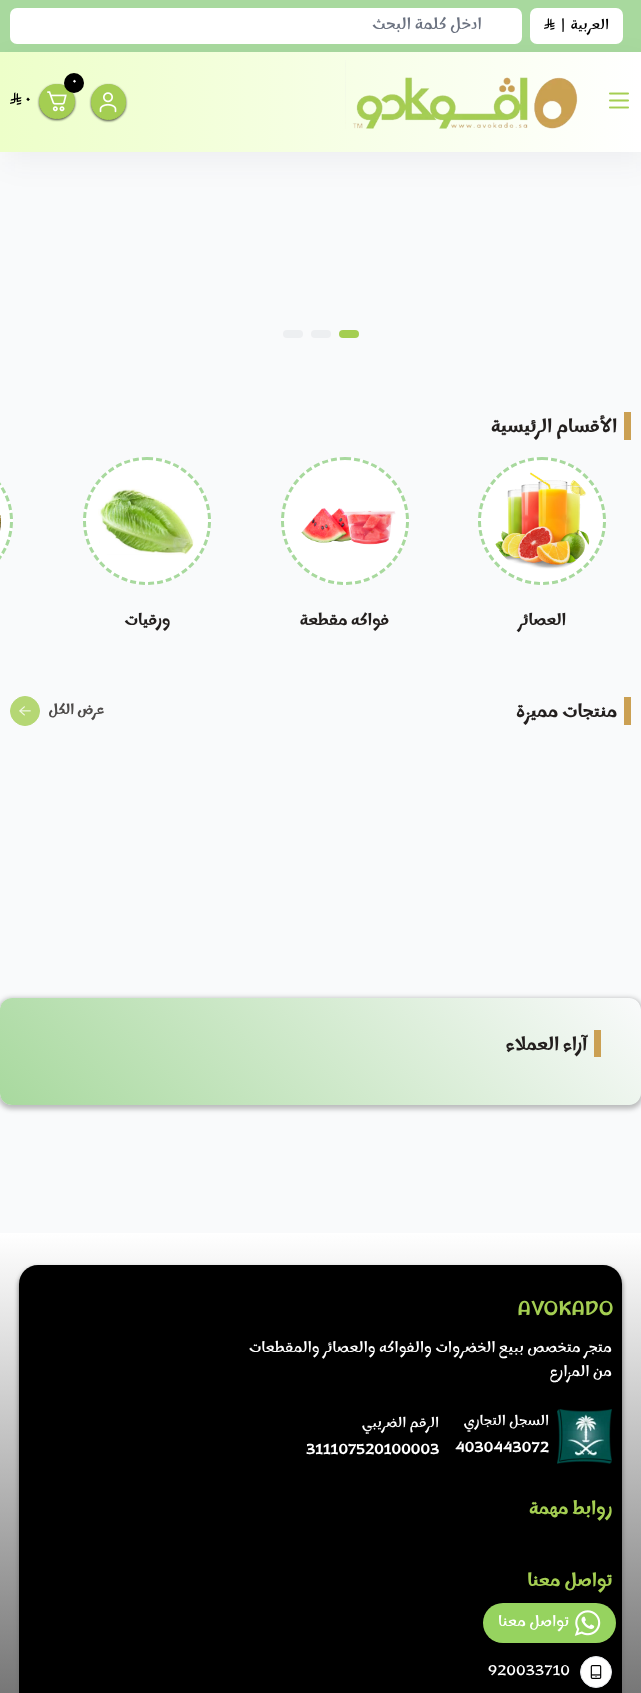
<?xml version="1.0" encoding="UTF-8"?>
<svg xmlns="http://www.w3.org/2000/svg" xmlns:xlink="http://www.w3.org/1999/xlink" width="641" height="1693">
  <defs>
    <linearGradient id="g1" gradientUnits="userSpaceOnUse" x1="641" y1="102" x2="0" y2="102"><stop offset="0" stop-color="#ffffff" /><stop offset="1" stop-color="#edffc9" /></linearGradient>
    <clipPath id="clip1"><path d="M 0 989 h 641 v 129 h -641 z m 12 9 h 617 c 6.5 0 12 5.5 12 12 v 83 c 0 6.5 -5.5 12 -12 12 h -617 c -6.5 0 -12 -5.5 -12 -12 v -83 c 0 -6.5 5.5 -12 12 -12 z" clip-rule="evenodd" /></clipPath>
    <linearGradient id="g2" gradientUnits="userSpaceOnUse" x1="134" y1="1239" x2="508" y2="865"><stop offset="0" stop-color="#a8d99e" /><stop offset="1" stop-color="#a8d99e" stop-opacity="0" /></linearGradient>
    <linearGradient id="g3" gradientUnits="userSpaceOnUse" x1="320" y1="1233" x2="321" y2="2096"><stop offset="0" stop-color="#ffffff" /><stop offset="1" stop-color="#000000" /></linearGradient>
  </defs>
  <rect width="100%" height="100%" fill="#f9fafb" />
  <rect width="641" height="52" fill="#a8d99e" />
  <rect x="5" y="62" width="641" height="100" fill="#2b2d34" fill-opacity="0.05" filter="blur(15px)" />
  <rect x="530" y="8" width="93" height="36" rx="7" fill="#ffffff" />
  <image x="544" y="18" width="11" height="12" xlink:href="image1.png" />
  <rect x="10" y="8" width="512" height="36" rx="7" fill="#ffffff" />
  <rect y="52" width="641" height="100" fill="url(#g1)" />
  <image x="609" y="92" width="20" height="17" xlink:href="image2.png" />
  <image x="345" y="60" width="233" height="69" xlink:href="image3.png" />
  <rect x="91" y="85" width="35" height="36" rx="17.5" fill="#000000" fill-opacity="0.68" filter="blur(1px)" />
  <rect x="91.5" y="84.5" width="34" height="35" rx="17" fill="#a4ce52" stroke="#a4ce52" />
  <image x="99" y="92" width="18" height="21" xlink:href="image4.png" />
  <rect x="39" y="85" width="36" height="35" rx="17.5" fill="#000000" fill-opacity="0.68" filter="blur(1px)" />
  <rect x="39.5" y="84.5" width="35" height="34" rx="17" fill="#a4ce52" stroke="#a4ce52" />
  <image x="47" y="91" width="20" height="21" xlink:href="image5.png" />
  <circle cx="74" cy="83" r="10" fill="#000000" />
  <image x="10" y="92" width="12" height="13" xlink:href="image6.png" />
  <rect x="339" y="330" width="20" height="8" rx="4" fill="#a4ce51" />
  <rect x="311" y="330" width="20" height="8" rx="4" fill="#edeff1" />
  <rect x="283" y="330" width="20" height="8" rx="4" fill="#edeff1" />
  <rect x="624" y="412" width="7" height="28" fill="#cba053" />
  <path d="M 0 457 h -51 c 35.5 0 64 28.5 64 64 c 0 35.5 -28.5 64 -64 64 h 51 z" fill="#ffffff" />
  <path d="M -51 458.5 c 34.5 0 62.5 28 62.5 62.5 c 0 34.5 -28 62.5 -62.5 62.5 c -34.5 0 -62.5 -28 -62.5 -62.5 c 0 -34.5 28 -62.5 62.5 -62.5 z" fill="none" stroke="#a8d99e" stroke-width="3" stroke-dasharray="6 3" />
  <image x="0" y="515" width="1" height="16" xlink:href="image7.png" />
  <circle cx="542" cy="521" r="64" fill="#ffffff" />
  <path d="M 542 458.5 c 34.5 0 62.5 28 62.5 62.5 c 0 34.5 -28 62.5 -62.5 62.5 c -34.5 0 -62.5 -28 -62.5 -62.5 c 0 -34.5 28 -62.5 62.5 -62.5 z" fill="none" stroke="#a8d99e" stroke-width="3" stroke-dasharray="6 3" />
  <image x="495" y="472" width="95" height="97" xlink:href="image8.png" />
  <circle cx="345" cy="521" r="64" fill="#ffffff" />
  <path d="M 345 458.5 c 34.5 0 62.5 28 62.5 62.5 c 0 34.5 -28 62.5 -62.5 62.5 c -34.5 0 -62.5 -28 -62.5 -62.5 c 0 -34.5 28 -62.5 62.5 -62.5 z" fill="none" stroke="#a8d99e" stroke-width="3" stroke-dasharray="6 3" />
  <image x="301" y="508" width="95" height="37" xlink:href="image9.png" />
  <circle cx="147" cy="521" r="64" fill="#ffffff" />
  <path d="M 147 458.5 c 34.5 0 62.5 28 62.5 62.5 c 0 34.5 -28 62.5 -62.5 62.5 c -34.5 0 -62.5 -28 -62.5 -62.5 c 0 -34.5 28 -62.5 62.5 -62.5 z" fill="none" stroke="#a8d99e" stroke-width="3" stroke-dasharray="6 3" />
  <image x="98" y="488" width="96" height="67" xlink:href="image10.png" />
  <rect x="624" y="697" width="7" height="28" fill="#cba053" />
  <circle cx="25" cy="711" r="14.5" fill="#b5d774" stroke="#b5d774" />
  <image x="19" y="706" width="12" height="10" xlink:href="image11.png" />
  <g clip-path="url(#clip1)">
    <rect x="-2" y="998" width="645" height="111" rx="14" fill="#000000" fill-opacity="0.25" filter="blur(2.5px)" />
  </g>
  <rect y="998" width="641" height="107" rx="12" fill="url(#g2)" />
  <rect x="594" y="1030" width="7" height="27" fill="#cba053" />
  <rect y="1233" width="641" height="460" fill="url(#g3)" />
  <rect x="19" y="1268" width="603" height="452" rx="19" fill="#6e6e6e" filter="blur(2.5px)" />
  <rect x="19" y="1265" width="603" height="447" rx="19" fill="#000000" />
  <image x="557" y="1409" width="55" height="55" xlink:href="image12.png" />
  <circle cx="596" cy="1672" r="15.5" fill="#ffffff" stroke="#e5e7eb" />
  <image x="590" y="1665" width="12" height="14" xlink:href="image13.png" />
  <rect x="483" y="1603" width="133" height="40" rx="20" fill="#96d35f" />
  <image x="574" y="1610" width="27" height="26" xlink:href="image14.png" />
  <text x="609" y="29" style="font-family: Marhey; font-size: 14px; direction: rtl; fill: #000000">العربية</text>
  <text x="561" y="29" style="font-family: Marhey; font-size: 14px; fill: #000000">|</text>
  <text x="482" y="29" style="font-family: Marhey; font-size: 16px; direction: rtl; fill: #6b7280">ادخل كلمة البحث</text>
  <text x="72" y="85" style="font-family: Marhey; font-size: 12px; font-weight: bold; fill: #ffffff">٠</text>
  <text x="25" y="104" style="font-family: Marhey; font-size: 15px; font-weight: bold; fill: #000000">٠</text>
  <text x="617" y="432" style="font-family: Marhey; font-size: 18px; font-weight: bold; direction: rtl; fill: #231f1e">الأقسام الرئيسية</text>
  <text x="566" y="625" style="font-family: Marhey; font-size: 16px; font-weight: bold; direction: rtl; fill: #231f1e">العصائر</text>
  <text x="389" y="625" style="font-family: Marhey; font-size: 16px; font-weight: bold; direction: rtl; fill: #231f1e">فواكه مقطعة</text>
  <text x="170" y="625" style="font-family: Marhey; font-size: 16px; font-weight: bold; direction: rtl; fill: #231f1e">ورقيات</text>
  <text x="617" y="717" style="font-family: Marhey; font-size: 18px; font-weight: bold; direction: rtl; fill: #231f1e">منتجات مميزة</text>
  <text x="104" y="714" style="font-family: Marhey; font-size: 14px; font-weight: bold; direction: rtl; fill: #4e4b4a">عرض الكل</text>
  <text x="587" y="1050" style="font-family: Marhey; font-size: 18px; font-weight: bold; direction: rtl; fill: #231f1e">آراء العملاء</text>
  <text x="517" y="1315" style="font-family: Marhey; font-size: 18px; font-weight: bold; fill: #a4ce52">AVOKADO</text>
  <text x="612" y="1352" style="font-family: Marhey; font-size: 15px; direction: rtl; fill: #ffffff">متجر متخصص ببيع الخضروات والفواكه والعصائر والمقطعات</text>
  <text x="612" y="1376" style="font-family: Marhey; font-size: 15px; direction: rtl; fill: #ffffff">من المزارع</text>
  <text x="549" y="1425" style="font-family: Marhey; font-size: 14px; direction: rtl; fill: #ffffff">السجل التجاري</text>
  <text x="455" y="1452" style="font-family: Marhey; font-size: 14px; font-weight: bold; fill: #ffffff">4030443072</text>
  <text x="439" y="1427" style="font-family: Marhey; font-size: 14px; direction: rtl; fill: #ffffff">الرقم الضريبي</text>
  <text x="306" y="1454" style="font-family: Marhey; font-size: 14px; font-weight: bold; fill: #ffffff">311107520100003</text>
  <text x="612" y="1514" style="font-family: Marhey; font-size: 18px; font-weight: bold; direction: rtl; fill: #a4ce52">روابط مهمة</text>
  <text x="612" y="1586" style="font-family: Marhey; font-size: 18px; font-weight: bold; direction: rtl; fill: #a4ce52">تواصل معنا</text>
  <text x="488" y="1675" style="font-family: Marhey; font-size: 14px; fill: #ffffff">920033710</text>
  <text x="569" y="1626" style="font-family: Marhey; font-size: 15px; direction: rtl; fill: #ffffff">تواصل معنا</text>
</svg>
